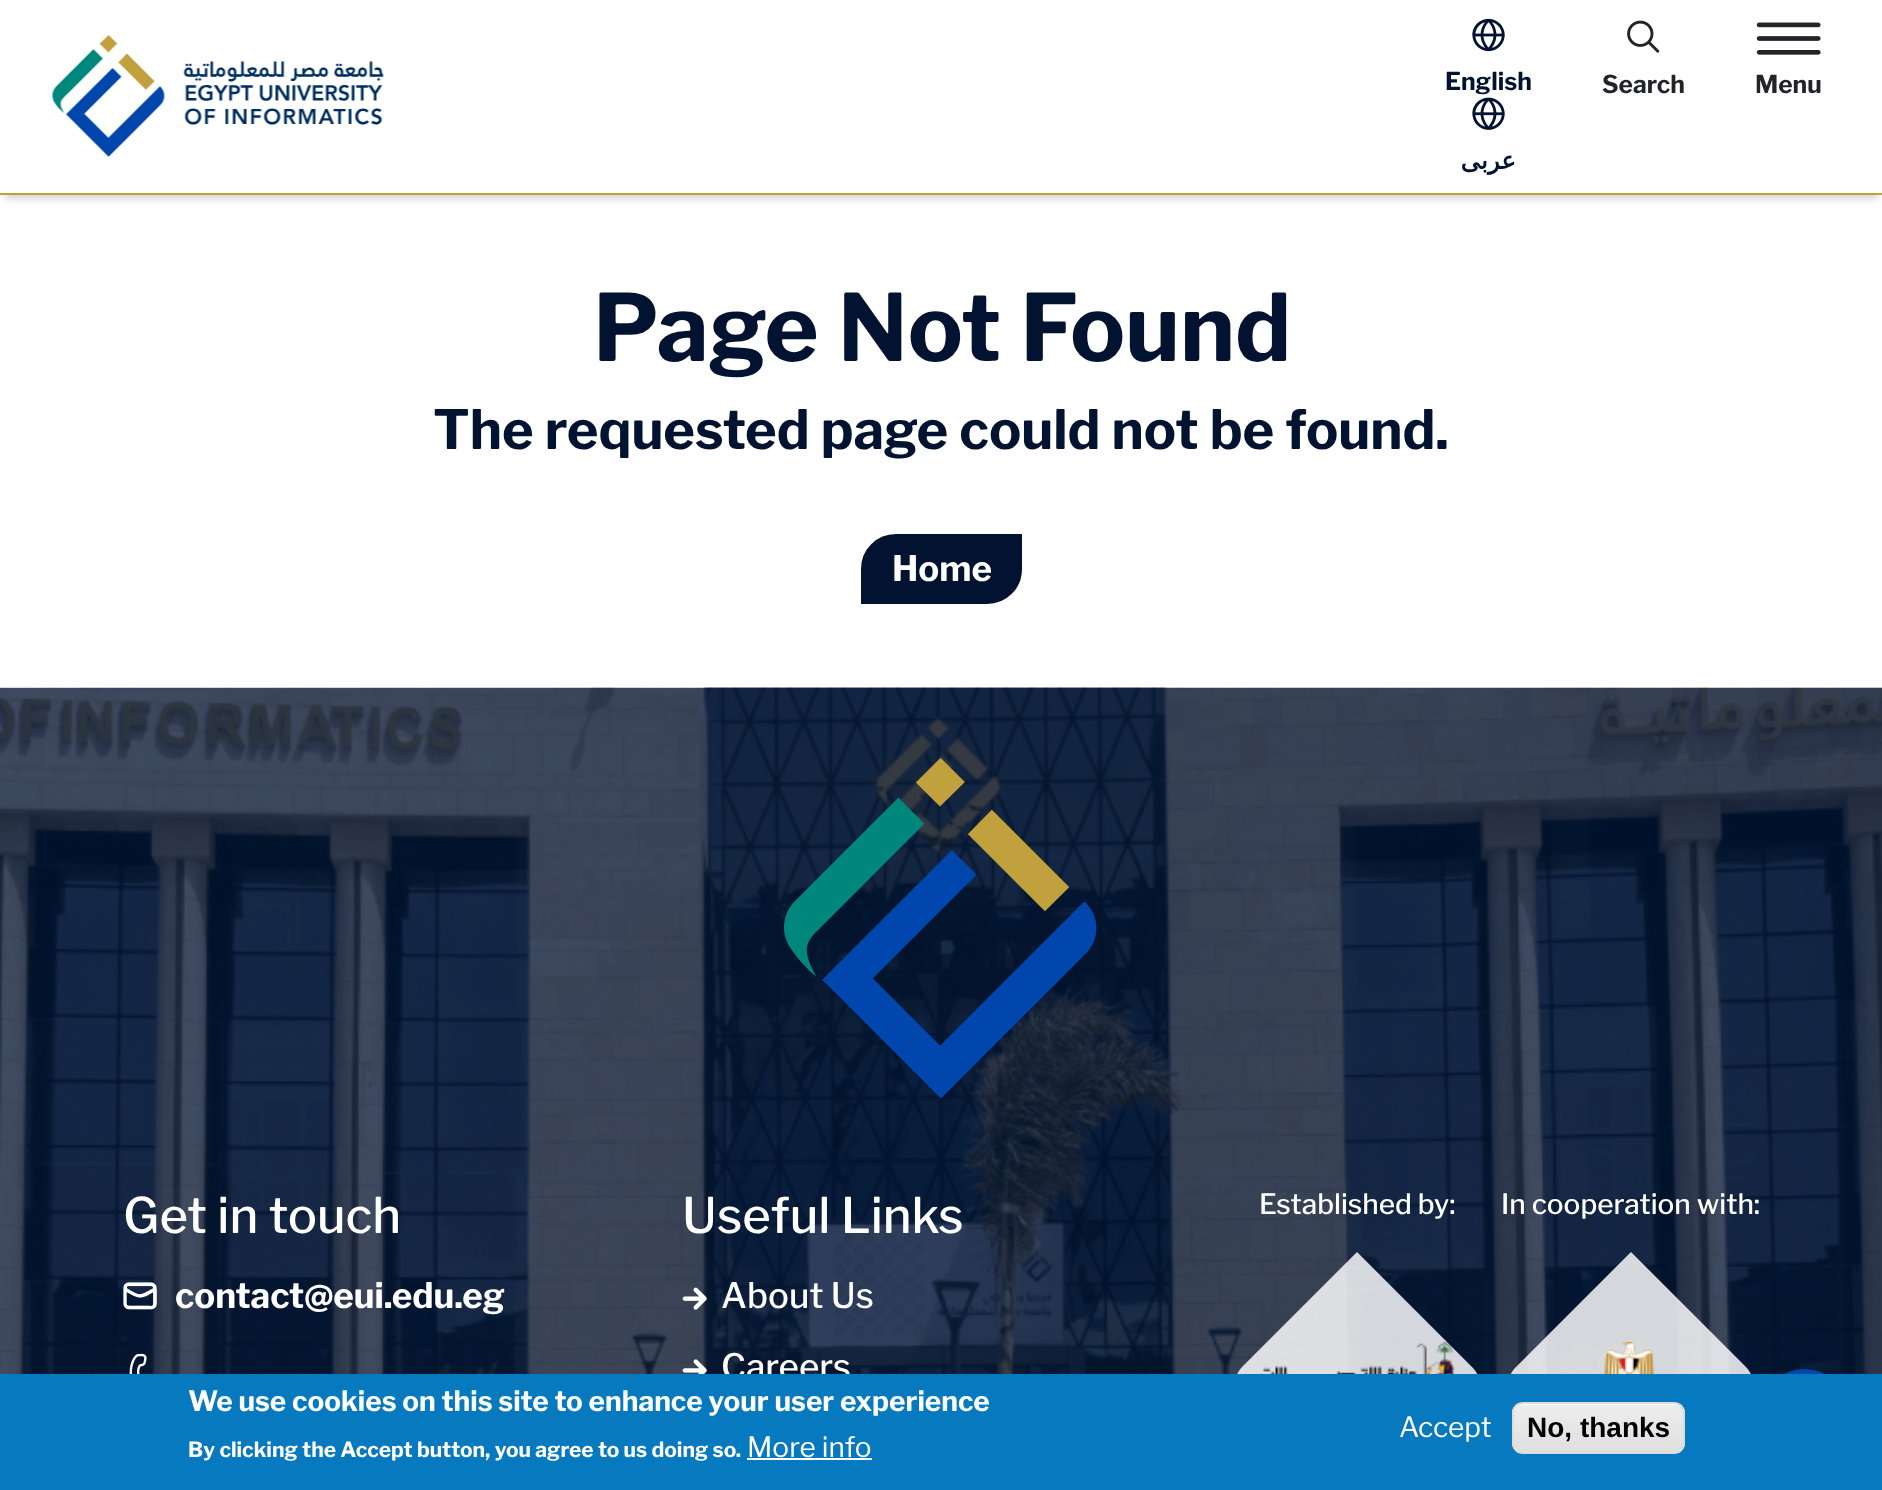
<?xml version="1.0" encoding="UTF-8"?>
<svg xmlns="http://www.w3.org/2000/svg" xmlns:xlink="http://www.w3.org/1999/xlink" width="1882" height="1490">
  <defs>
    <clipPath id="clip1"><rect x="1512" y="1402" width="173" height="52" rx="11" /></clipPath>
    <linearGradient id="g1" gradientUnits="userSpaceOnUse" x1="1599" y1="1404" x2="1599" y2="1453"><stop offset="0.05" stop-color="#ededed" /><stop offset="1" stop-color="#dfdfdf" /></linearGradient>
  </defs>
  <rect width="100%" height="100%" fill="#ffffff" />
  <rect x="5" y="14" width="1873" height="184" fill="#000000" fill-opacity="0.2" filter="blur(4.5px)" />
  <rect y="7" width="1882" height="186" fill="#ffffff" />
  <rect y="193" width="1882" height="2" fill="#c1a03e" />
  <image x="52" y="35" width="332" height="122" xlink:href="image1.png" />
  <image x="1472" y="18" width="33" height="34" xlink:href="image2.png" />
  <image x="1472" y="97" width="33" height="33" xlink:href="image3.png" />
  <image x="1627" y="20" width="33" height="33" xlink:href="image4.png" />
  <image x="1756" y="22" width="65" height="33" xlink:href="image5.png" />
  <path d="M 896 535 h 125 v 34 c 0 19 -15 34 -34 34 h -125 v -34 c 0 -19 15 -34 34 -34 z" fill="#011330" stroke="#011330" stroke-width="2" />
  <image x="0" y="687" width="1882" height="687" xlink:href="image6.png" />
  <image x="784" y="758" width="313" height="341" xlink:href="image7.png" />
  <image x="123" y="1282" width="34" height="28" xlink:href="image8.png" />
  <image x="129" y="1353" width="18" height="21" xlink:href="image9.png" />
  <image x="682" y="1287" width="25" height="23" xlink:href="image10.png" />
  <image x="682" y="1359" width="25" height="15" xlink:href="image11.png" />
  <path d="M 1357 1252 l 114 114 c 14 13 14 36 0 49 l -114 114 l -114 -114 c -13 -13 -13 -36 0 -49 z" fill="#ffffff" fill-opacity="0.83" />
  <image x="1260" y="1342" width="195" height="32" xlink:href="image12.png" />
  <path d="M 1631 1252 l 114 114 c 13 13 13 36 0 49 l -114 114 l -114 -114 c -14 -13 -14 -36 0 -49 z" fill="#ffffff" fill-opacity="0.83" />
  <image x="1604" y="1342" width="51" height="32" xlink:href="image13.png" />
  <circle cx="1804.5" cy="1412.5" r="41.5" fill="#0046ad" stroke="#0046ad" stroke-width="4" />
  <text x="1445" y="90" style="font-family: Libre Franklin; font-size: 24.5px; font-weight: bold; fill: #011330">English</text>
  <text x="1516" y="169" style="font-family: DejaVu Sans; font-size: 24.5px; font-weight: bold; direction: rtl; fill: #011330">عربى</text>
  <text x="1602" y="93" style="font-family: Libre Franklin; font-size: 24.5px; font-weight: bold; fill: #212529">Search</text>
  <text x="1755" y="93" style="font-family: Libre Franklin; font-size: 24.5px; font-weight: bold; fill: #212529">Menu</text>
  <text x="593" y="361" style="font-family: Libre Franklin; font-size: 92.25px; font-weight: bold; fill: #011330">Page Not Found</text>
  <text x="433" y="449" style="font-family: Libre Franklin; font-size: 54px; font-weight: bold; fill: #011330">The requested page could not be found.</text>
  <text x="892" y="581" style="font-family: Libre Franklin; font-size: 35px; font-weight: bold; fill: #ffffff">Home</text>
  <text x="123" y="1233" style="font-family: Libre Franklin; font-size: 49px; font-weight: 500; fill: #ffffff">Get in touch</text>
  <text x="175" y="1308" style="font-family: Libre Franklin; font-size: 35px; font-weight: bold; fill: #ffffff">contact@eui.edu.eg</text>
  <text x="682" y="1233" style="font-family: Libre Franklin; font-size: 49px; font-weight: 500; fill: #ffffff">Useful Links</text>
  <text x="721" y="1308" style="font-family: Libre Franklin; font-size: 35px; font-weight: 500; fill: #ffffff">About Us</text>
  <text x="721" y="1379" style="font-family: Libre Franklin; font-size: 35px; font-weight: 500; fill: #ffffff">Careers</text>
  <text x="1259" y="1214" style="font-family: Libre Franklin; font-size: 28px; font-weight: 500; fill: #ffffff">Established by:</text>
  <text x="1501" y="1214" style="font-family: Libre Franklin; font-size: 28px; font-weight: 500; fill: #ffffff">In cooperation with:</text>
  <rect y="1374" width="1882" height="116" fill="#0779bf" />
  <text x="188" y="1411" style="font-family: Libre Franklin; font-size: 28px; font-weight: bold; fill: #ffffff">We use cookies on this site to enhance your user experience</text>
  <text x="188" y="1457" style="font-family: Libre Franklin; font-size: 21px; font-weight: bold; fill: #ffffff">By clicking the Accept button, you agree to us doing so.</text>
  <text x="747" y="1457" style="font-family: Libre Franklin; font-size: 28px; fill: #ffffff">More info</text>
  <rect x="747" y="1458" width="125" height="2" fill="#ffffff" />
  <text x="1399" y="1437" style="font-family: Libre Franklin; font-size: 28px; fill: #ffffff">Accept</text>
  <g clip-path="url(#clip1)">
    <rect x="1512" y="1404" width="173" height="49" fill="url(#g1)" />
  </g>
  <path d="M 1522 1405 h 153 c 5 0 9 4 9 9 c 0 -16 -27 -10 -34 -10 h -102 c -7 0 -34 -6 -34 10 c 0 -5 4 -9 8 -9 z" fill="#ffffff" />
  <rect x="1513" y="1403" width="171" height="50" rx="10" fill="none" stroke="#dcdcdc" stroke-width="2" />
  <text x="1527" y="1437" style="font-family: Liberation Sans; font-size: 28px; font-weight: bold; fill: #000000">No, thanks</text>
</svg>
